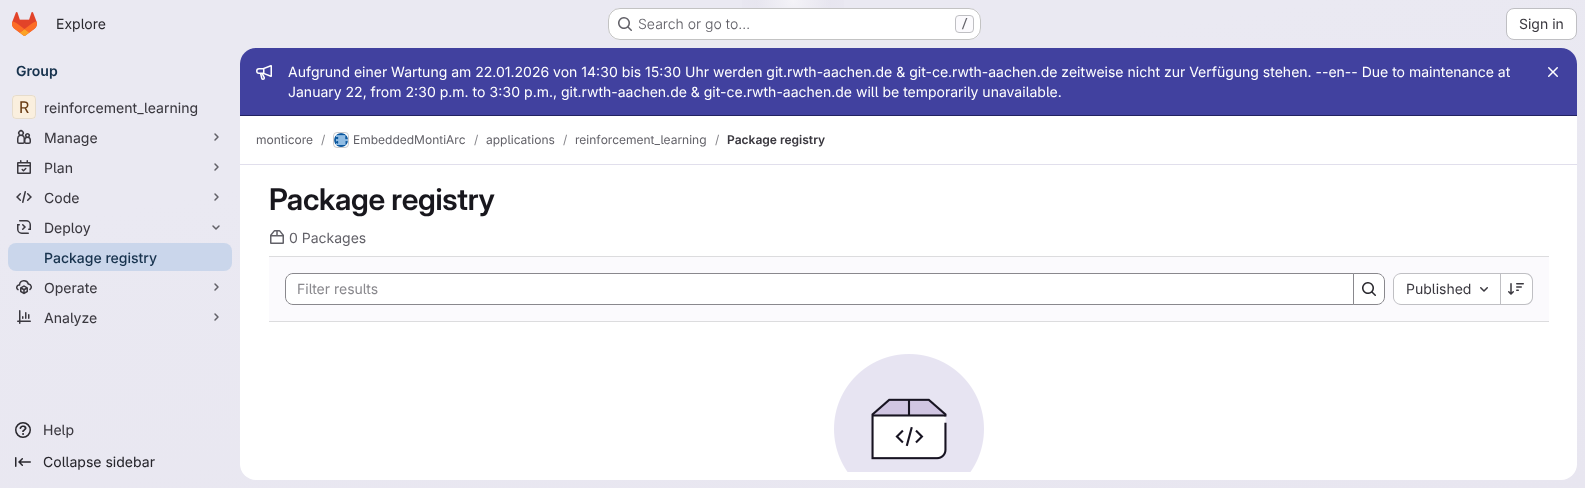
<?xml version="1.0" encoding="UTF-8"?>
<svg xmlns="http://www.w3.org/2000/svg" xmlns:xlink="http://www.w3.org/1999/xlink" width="1585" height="488">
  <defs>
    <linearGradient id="g1" gradientUnits="userSpaceOnUse" x1="858" y1="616" x2="727" y2="-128"><stop offset="0" stop-color="#e8e6f0" /><stop offset="0.7" stop-color="#eae9f2" /></linearGradient>
    <radialGradient id="g2" gradientUnits="userSpaceOnUse" cx="0" cy="0" r="1" gradientTransform="matrix(793 0 0 488 793 0)"><stop offset="0" stop-color="#e4e2ed" /><stop offset="0.09" stop-color="#e4e2ed" stop-opacity="0" /></radialGradient>
    <radialGradient id="g3" gradientUnits="userSpaceOnUse" cx="793" cy="0" r="931"><stop offset="0" stop-color="#ffffff" stop-opacity="0.6" /><stop offset="0.04" stop-color="#ffffff" stop-opacity="0" /></radialGradient>
  </defs>
  <rect width="100%" height="100%" fill="#ffffff" />
  <rect width="1585" height="488" fill="url(#g1)" />
  <rect x="742" width="102" height="32" fill="url(#g2)" />
  <rect x="757" width="72" height="8" fill="url(#g3)" />
  <image x="12" y="12" width="25" height="24" xlink:href="image1.png" />
  <rect x="608" y="8" width="373" height="32" rx="12" fill="#ffffff" />
  <rect x="608.5" y="8.5" width="372" height="31" rx="11.5" fill="none" stroke="#050506" stroke-opacity="0.24" />
  <image x="618" y="17" width="14" height="14" xlink:href="image2.png" />
  <rect x="955.5" y="15.5" width="18" height="17" rx="3.5" fill="#fbfafd" stroke="#bfbfc3" />
  <rect x="1506.5" y="8.5" width="70" height="31" rx="7.5" fill="#ffffff" stroke="#bfbfc3" />
  <rect x="12" y="95" width="24" height="24" rx="4" fill="#ffffff" />
  <rect x="12" y="95" width="24" height="24" rx="4" fill="#e9be74" fill-opacity="0.24" />
  <rect x="12.5" y="95.5" width="23" height="23" rx="3.5" fill="none" stroke="#050506" stroke-opacity="0.08" />
  <image x="17" y="129" width="14" height="15" xlink:href="image3.png" />
  <path d="M 215 134 l 3 3 l -3 3" fill="none" stroke="#626168" stroke-width="1.5" stroke-linecap="round" stroke-linejoin="round" />
  <image x="17" y="160" width="14" height="14" xlink:href="image4.png" />
  <path d="M 215 164 l 3 3 l -3 3" fill="none" stroke="#626168" stroke-width="1.5" stroke-linecap="round" stroke-linejoin="round" />
  <image x="16" y="191" width="16" height="12" xlink:href="image5.png" />
  <path d="M 215 194 l 3 3 l -3 3" fill="none" stroke="#626168" stroke-width="1.5" stroke-linecap="round" stroke-linejoin="round" />
  <image x="17" y="220" width="14" height="14" xlink:href="image6.png" />
  <path d="M 219 226 l -3 3 l -3 -3" fill="none" stroke="#626168" stroke-width="1.5" stroke-linecap="round" stroke-linejoin="round" />
  <rect x="8" y="243" width="224" height="28" rx="8" fill="#cad6eb" />
  <image x="16" y="280" width="16" height="15" xlink:href="image7.png" />
  <path d="M 215 284 l 3 3 l -3 3" fill="none" stroke="#626168" stroke-width="1.5" stroke-linecap="round" stroke-linejoin="round" />
  <image x="17" y="310" width="14" height="14" xlink:href="image8.png" />
  <path d="M 215 314 l 3 3 l -3 3" fill="none" stroke="#626168" stroke-width="1.5" stroke-linecap="round" stroke-linejoin="round" />
  <image x="15" y="422" width="16" height="16" xlink:href="image9.png" />
  <image x="15" y="457" width="16" height="10" xlink:href="image10.png" />
  <rect x="240" y="48" width="1337" height="432" rx="16" fill="#ffffff" />
  <path d="M 256 48 h 1305 c 9 0 16 7 16 16 v 52 h -1337 v -52 c 0 -9 7 -16 16 -16 z" fill="#41419f" />
  <rect x="240" y="115" width="1337" height="1" fill="#222261" />
  <image x="256" y="65" width="16" height="15" xlink:href="image11.png" />
  <image x="1548" y="67" width="10" height="10" xlink:href="image12.png" />
  <rect x="240" y="164" width="1337" height="1" fill="#e1dfec" />
  <rect x="333.5" y="132.5" width="15" height="15" rx="3.5" fill="none" stroke="#dcdcde" />
  <image x="334" y="133" width="14" height="14" xlink:href="image13.png" />
  <rect x="333.5" y="132.5" width="15" height="15" rx="3.5" fill="none" stroke="#050506" stroke-opacity="0.08" />
  <image x="270" y="230" width="14" height="14" xlink:href="image14.png" />
  <rect x="269" y="257" width="1280" height="64" fill="#fbfafd" />
  <rect x="269" y="256" width="1280" height="1" fill="#dcdcde" />
  <rect x="269" y="321" width="1280" height="1" fill="#dcdcde" />
  <path d="M 293 273.5 h 1060.5 v 31 h -1060.5 c -4 0 -7.5 -3.5 -7.5 -7.5 v -16 c 0 -4 3.5 -7.5 7.5 -7.5 z" fill="#ffffff" stroke="#89888d" />
  <path d="M 1353.5 273.5 h 23.5 c 4 0 7.5 3.5 7.5 7.5 v 16 c 0 4 -3.5 7.5 -7.5 7.5 h -23.5 z" fill="#ffffff" stroke="#89888d" />
  <image x="1362" y="282" width="14" height="14" xlink:href="image15.png" />
  <path d="M 1401 274 h 99 v 30 h -99 c -4 0 -7 -3 -7 -7 v -16 c 0 -4 3 -7 7 -7 z" fill="#ffffff" />
  <path d="M 1401 273 h 99 v 32 h -99 c -4 0 -8 -4 -8 -8 v -16 c 0 -4 4 -8 8 -8 z m 0 1 h 99 v 30 h -99 c -4 0 -7 -3 -7 -7 v -16 c 0 -4 3 -7 7 -7 z" fill="#bfbfc3" fill-rule="evenodd" />
  <image x="1480" y="287" width="8" height="5" xlink:href="image16.png" />
  <path d="M 1501 274 h 24 c 4 0 7 3 7 7 v 16 c 0 4 -3 7 -7 7 h -24 z" fill="#ffffff" />
  <path d="M 1501 273 h 24 c 4.5 0 8 3.5 8 8 v 16 c 0 4.5 -3.5 8 -8 8 h -24 z m 0 1 h 24 c 4 0 7 3 7 7 v 16 c 0 4 -3 7 -7 7 h -24 z" fill="#bfbfc3" fill-rule="evenodd" />
  <rect x="1500" y="273" width="1" height="32" fill="#bfbfc3" />
  <image x="1508" y="283" width="16" height="12" xlink:href="image17.png" />
  <image x="834" y="354" width="150" height="118" xlink:href="image18.png" />
  <text x="56" y="29" style="font-family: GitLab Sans; font-size: 14px; fill: #28272d">Explore</text>
  <text x="638" y="29" style="font-family: GitLab Sans; font-size: 14px; font-weight: 300; fill: #626168">Search or go to…</text>
  <text x="961" y="28" style="font-family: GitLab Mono; font-size: 12px; font-weight: 500; fill: #626168">/</text>
  <text x="1519" y="29" style="font-family: GitLab Sans; font-size: 14px; fill: #3a383f">Sign in</text>
  <text x="16" y="76" style="font-family: 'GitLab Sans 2'; font-size: 14px; font-weight: 600; fill: #18334e">Group</text>
  <text x="19" y="113" style="font-family: 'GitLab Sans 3'; font-size: 16px; fill: #693c14">R</text>
  <text x="44" y="113" style="font-family: 'GitLab Sans 2'; font-size: 14px; fill: #3a383f">reinforcement_learning</text>
  <text x="44" y="143" style="font-family: 'GitLab Sans 2'; font-size: 14px; fill: #3a383f">Manage</text>
  <text x="44" y="173" style="font-family: 'GitLab Sans 2'; font-size: 14px; fill: #3a383f">Plan</text>
  <text x="44" y="203" style="font-family: 'GitLab Sans 2'; font-size: 14px; fill: #3a383f">Code</text>
  <text x="44" y="233" style="font-family: 'GitLab Sans 2'; font-size: 14px; fill: #3a383f">Deploy</text>
  <text x="44" y="263" style="font-family: GitLab Sans; font-size: 14px; font-weight: 500; fill: #18334e">Package registry</text>
  <text x="44" y="293" style="font-family: 'GitLab Sans 2'; font-size: 14px; fill: #3a383f">Operate</text>
  <text x="44" y="323" style="font-family: 'GitLab Sans 2'; font-size: 14px; fill: #3a383f">Analyze</text>
  <text x="43" y="435" style="font-family: 'GitLab Sans 2'; font-size: 14px; fill: #3a383f">Help</text>
  <text x="43" y="467" style="font-family: 'GitLab Sans 2'; font-size: 14px; fill: #28272d">Collapse sidebar</text>
  <text x="288" y="77" style="font-family: GitLab Sans; font-size: 14px; fill: #ffffff">Aufgrund einer Wartung am 22.01.2026 von 14:30 bis 15:30 Uhr werden git.rwth-aachen.de &amp; git-ce.rwth-aachen.de zeitweise nicht zur Verfügung stehen. --en-- Due to maintenance at</text>
  <text x="288" y="97" style="font-family: GitLab Sans; font-size: 14px; fill: #ffffff">January 22, from 2:30 p.m. to 3:30 p.m., git.rwth-aachen.de &amp; git-ce.rwth-aachen.de will be temporarily unavailable.</text>
  <text x="256" y="144" style="font-family: GitLab Sans; font-size: 12px; fill: #626168">monticore</text>
  <text x="321" y="144" style="font-family: GitLab Sans; font-size: 12px; fill: #89888d">/</text>
  <text x="353" y="144" style="font-family: GitLab Sans; font-size: 12px; fill: #626168">EmbeddedMontiArc</text>
  <text x="474" y="144" style="font-family: GitLab Sans; font-size: 12px; fill: #89888d">/</text>
  <text x="486" y="144" style="font-family: GitLab Sans; font-size: 12px; fill: #626168">applications</text>
  <text x="563" y="144" style="font-family: GitLab Sans; font-size: 12px; fill: #89888d">/</text>
  <text x="575" y="144" style="font-family: GitLab Sans; font-size: 12px; fill: #626168">reinforcement_learning</text>
  <text x="715" y="144" style="font-family: GitLab Sans; font-size: 12px; fill: #89888d">/</text>
  <text x="727" y="144" style="font-family: 'GitLab Sans 2'; font-size: 12px; font-weight: 600; fill: #3a383f">Package registry</text>
  <text x="269" y="210" style="font-family: GitLab Sans; font-size: 30px; font-weight: 600; letter-spacing: -0.25px; fill: #18171d">Package registry</text>
  <text x="289" y="243" style="font-family: GitLab Sans; font-size: 14px; fill: #626168">0 Packages</text>
  <text x="297" y="294" style="font-family: GitLab Sans; font-size: 14px; fill: #89888d">Filter results</text>
  <text x="1406" y="294" style="font-family: GitLab Sans; font-size: 14px; fill: #3a383f">Published</text>
</svg>
